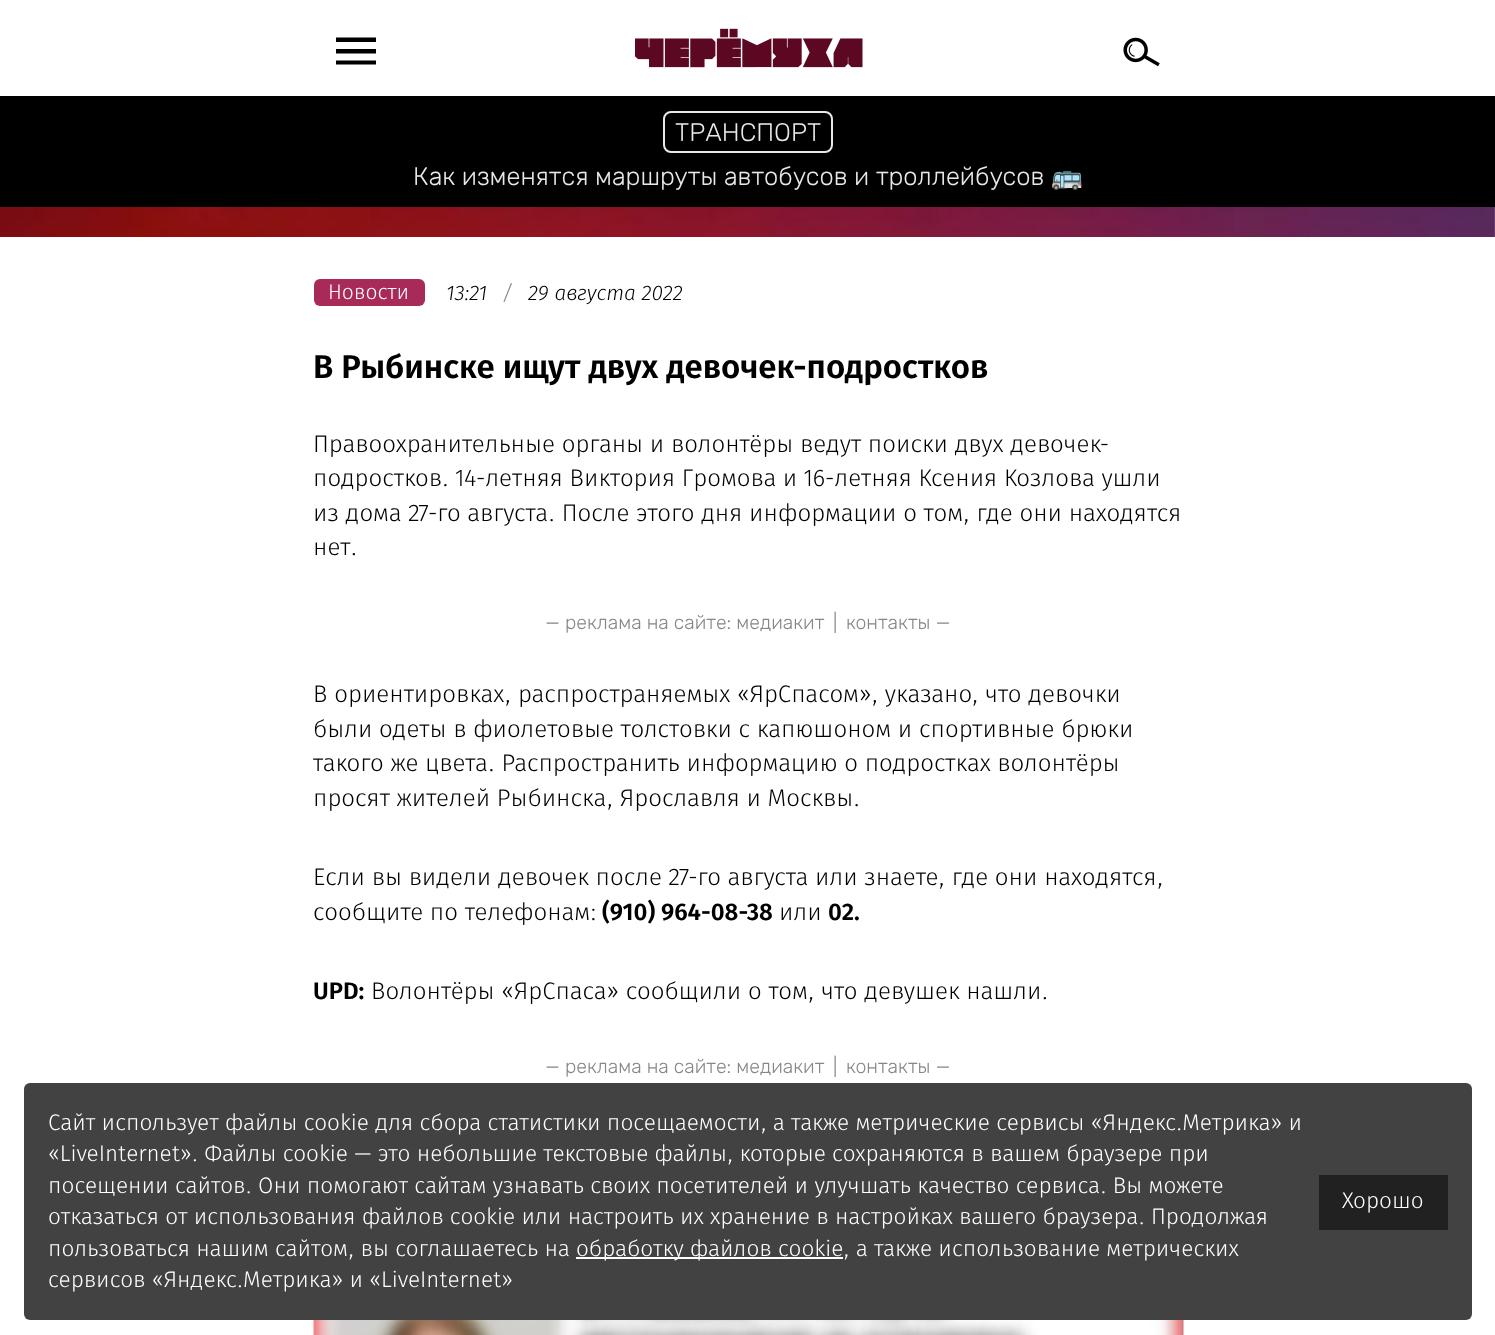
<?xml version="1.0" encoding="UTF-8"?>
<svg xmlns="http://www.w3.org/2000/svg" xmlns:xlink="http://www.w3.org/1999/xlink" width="1495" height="1335">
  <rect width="100%" height="100%" fill="#ffffff" />
  <image x="0" y="207" width="1495" height="30" xlink:href="image1.png" />
  <image x="635" y="28" width="228" height="40" xlink:href="image2.png" />
  <path d="M 336 37.5 h 40 v 4.5 h -40 z m 0 11.5 h 40 v 4.5 h -40 z m 0 11.5 h 40 v 4 h -40 z" fill="#000000" />
  <image x="1123" y="37" width="37" height="30" xlink:href="image3.png" />
  <rect y="96" width="1495" height="111" fill="#000000" />
  <rect x="664" y="112" width="168" height="40" rx="7" fill="none" stroke="#e8e8e8" stroke-width="2" />
  <rect x="314" y="279" width="111" height="27" rx="6" fill="#a82a59" />
  <image x="313" y="1320" width="871" height="15" xlink:href="image4.png" />
  <rect x="24" y="1083" width="1448" height="237" rx="6" fill="#424242" />
  <rect x="576" y="1257" width="267" height="2" fill="#ffffff" />
  <rect x="1319" y="1175" width="129" height="55" fill="#212121" />
  <text x="675" y="141" style="font-family: Rubik; font-size: 25.5px; font-weight: 300; fill: #e8e8e8">ТРАНСПОРТ</text>
  <text x="413" y="185" style="font-family: Rubik; font-size: 25.5px; font-weight: 300; fill: #e8e8e8">Как изменятся маршруты автобусов и троллейбусов</text>
  <text x="1051" y="185" style="font-family: Noto Color Emoji; font-size: 25.5px; fill: #e8e8e8">🚌</text>
  <text x="328" y="299" style="font-family: Fira Sans; font-size: 21px; font-weight: 300; fill: #ffffff">Новости</text>
  <text x="446" y="300" style="font-family: Fira Sans; font-size: 21px; font-weight: 300; font-style: italic; fill: #000000">13:21</text>
  <text x="502" y="300" style="font-family: Fira Sans; font-size: 21px; font-weight: 300; font-style: italic; fill: #878787">/</text>
  <text x="528" y="300" style="font-family: Fira Sans; font-size: 21px; font-weight: 300; font-style: italic; fill: #000000">29 августа 2022</text>
  <text x="313" y="378" style="font-family: Fira Sans; font-size: 33px; font-weight: 600; fill: #000000">В Рыбинске ищут двух девочек-подростков</text>
  <text x="313" y="452" style="font-family: Fira Sans; font-size: 24px; font-weight: 300; fill: #000000">Правоохранительные органы и волонтёры ведут поиски двух девочек-</text>
  <text x="313" y="486" style="font-family: Fira Sans; font-size: 24px; font-weight: 300; fill: #000000">подростков. 14-летняя Виктория Громова и 16-летняя Ксения Козлова ушли</text>
  <text x="313" y="521" style="font-family: Fira Sans; font-size: 24px; font-weight: 300; fill: #000000">из дома 27-го августа. После этого дня информации о том, где они находятся</text>
  <text x="313" y="555" style="font-family: Fira Sans; font-size: 24px; font-weight: 300; fill: #000000">нет.</text>
  <text x="545" y="629" style="font-family: Rubik; font-size: 19.5px; font-weight: 300; fill: #878787">— реклама на сайте: медиакит</text>
  <text x="833" y="629" style="font-family: Rubik; font-size: 19.5px; font-weight: 300; fill: #878787">|</text>
  <text x="846" y="629" style="font-family: Rubik; font-size: 19.5px; font-weight: 300; fill: #878787">контакты —</text>
  <text x="313" y="702" style="font-family: Fira Sans; font-size: 24px; font-weight: 300; fill: #000000">В ориентировках, распространяемых «ЯрСпасом», указано, что девочки</text>
  <text x="313" y="737" style="font-family: Fira Sans; font-size: 24px; font-weight: 300; fill: #000000">были одеты в фиолетовые толстовки с капюшоном и спортивные брюки</text>
  <text x="313" y="771" style="font-family: Fira Sans; font-size: 24px; font-weight: 300; fill: #000000">такого же цвета. Распространить информацию о подростках волонтёры</text>
  <text x="313" y="806" style="font-family: Fira Sans; font-size: 24px; font-weight: 300; fill: #000000">просят жителей Рыбинска, Ярославля и Москвы.</text>
  <text x="313" y="885" style="font-family: Fira Sans; font-size: 24px; font-weight: 300; fill: #000000">Если вы видели девочек после 27-го августа или знаете, где они находятся,</text>
  <text x="313" y="920" style="font-family: Fira Sans; font-size: 24px; font-weight: 300; fill: #000000">сообщите по телефонам:</text>
  <text x="602" y="920" style="font-family: Fira Sans; font-size: 24px; font-weight: 600; fill: #000000">(910) 964-08-38</text>
  <text x="779" y="920" style="font-family: Fira Sans; font-size: 24px; font-weight: 300; fill: #000000">или</text>
  <text x="828" y="920" style="font-family: Fira Sans; font-size: 24px; font-weight: 600; fill: #000000">02.</text>
  <text x="313" y="999" style="font-family: Fira Sans; font-size: 24px; font-weight: 600; fill: #000000">UPD:</text>
  <text x="371" y="999" style="font-family: Fira Sans; font-size: 24px; font-weight: 300; fill: #000000">Волонтёры «ЯрСпаса» сообщили о том, что девушек нашли.</text>
  <text x="545" y="1073" style="font-family: Rubik; font-size: 19.5px; font-weight: 300; fill: #878787">— реклама на сайте: медиакит</text>
  <text x="833" y="1073" style="font-family: Rubik; font-size: 19.5px; font-weight: 300; fill: #878787">|</text>
  <text x="846" y="1073" style="font-family: Rubik; font-size: 19.5px; font-weight: 300; fill: #878787">контакты —</text>
  <text x="48" y="1130" style="font-family: Fira Sans; font-size: 22.5px; font-weight: 300; fill: #ffffff">Сайт использует файлы cookie для сбора статистики посещаемости, а также метрические сервисы «Яндекс.Метрика» и</text>
  <text x="48" y="1161" style="font-family: Fira Sans; font-size: 22.5px; font-weight: 300; fill: #ffffff">«LiveInternet». Файлы cookie — это небольшие текстовые файлы, которые сохраняются в вашем браузере при</text>
  <text x="48" y="1193" style="font-family: Fira Sans; font-size: 22.5px; font-weight: 300; fill: #ffffff">посещении сайтов. Они помогают сайтам узнавать своих посетителей и улучшать качество сервиса. Вы можете</text>
  <text x="48" y="1224" style="font-family: Fira Sans; font-size: 22.5px; font-weight: 300; fill: #ffffff">отказаться от использования файлов cookie или настроить их хранение в настройках вашего браузера. Продолжая</text>
  <text x="48" y="1256" style="font-family: Fira Sans; font-size: 22.5px; font-weight: 300; fill: #ffffff">пользоваться нашим сайтом, вы соглашаетесь на</text>
  <text x="576" y="1256" style="font-family: Fira Sans; font-size: 22.5px; font-weight: 300; fill: #ffffff">обработку файлов cookie, а также использование метрических</text>
  <text x="48" y="1287" style="font-family: Fira Sans; font-size: 22.5px; font-weight: 300; fill: #ffffff">сервисов «Яндекс.Метрика» и «LiveInternet»</text>
  <text x="1342" y="1208" style="font-family: Fira Sans; font-size: 22.5px; font-weight: 300; fill: #ffffff">Хорошо</text>
</svg>
